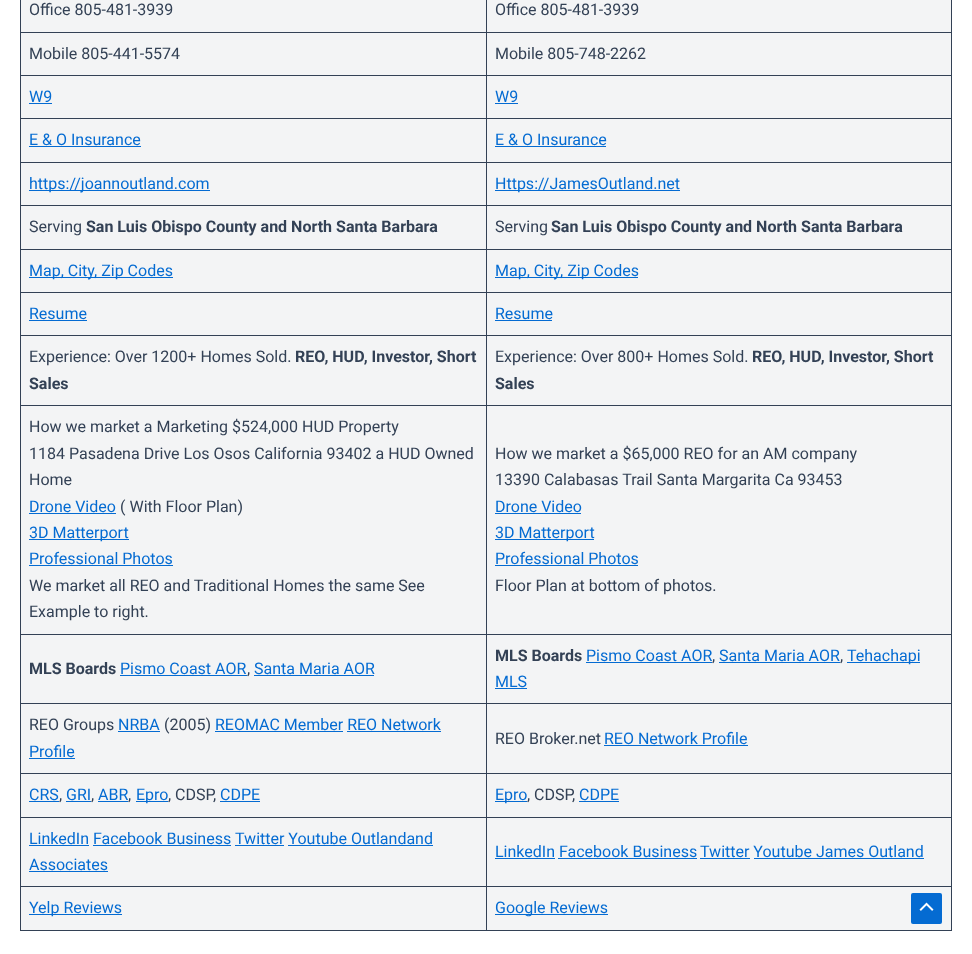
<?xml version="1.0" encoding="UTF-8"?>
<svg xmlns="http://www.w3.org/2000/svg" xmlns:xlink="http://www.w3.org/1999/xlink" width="972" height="954">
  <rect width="100%" height="100%" fill="#ffffff" />
  <rect x="21" width="930" height="930" fill="#f3f4f5" />
  <rect x="486" y="32" width="466" height="1" fill="#334155" />
  <rect x="486" y="75" width="466" height="1" fill="#334155" />
  <rect x="486" y="118" width="466" height="1" fill="#334155" />
  <rect x="486" y="162" width="466" height="1" fill="#334155" />
  <rect x="486" y="205" width="466" height="1" fill="#334155" />
  <rect x="486" y="249" width="466" height="1" fill="#334155" />
  <rect x="486" y="292" width="466" height="1" fill="#334155" />
  <rect x="486" y="335" width="466" height="1" fill="#334155" />
  <rect x="486" y="405" width="466" height="1" fill="#334155" />
  <rect x="486" y="634" width="466" height="1" fill="#334155" />
  <rect x="486" y="703" width="466" height="1" fill="#334155" />
  <rect x="486" y="773" width="466" height="1" fill="#334155" />
  <rect x="486" y="817" width="466" height="1" fill="#334155" />
  <rect x="486" y="886" width="466" height="1" fill="#334155" />
  <rect x="951" y="886" width="1" height="45" fill="#334155" />
  <rect x="486" y="930" width="466" height="1" fill="#334155" />
  <rect x="486" y="886" width="1" height="45" fill="#334155" />
  <rect x="20" y="886" width="467" height="1" fill="#334155" />
  <rect x="486" y="817" width="1" height="70" fill="#334155" />
  <rect x="20" y="817" width="467" height="1" fill="#334155" />
  <rect x="486" y="773" width="1" height="45" fill="#334155" />
  <rect x="20" y="773" width="467" height="1" fill="#334155" />
  <rect x="486" y="703" width="1" height="71" fill="#334155" />
  <rect x="20" y="703" width="467" height="1" fill="#334155" />
  <rect x="486" y="634" width="1" height="70" fill="#334155" />
  <rect x="20" y="634" width="467" height="1" fill="#334155" />
  <rect x="486" y="405" width="1" height="230" fill="#334155" />
  <rect x="20" y="405" width="467" height="1" fill="#334155" />
  <rect x="486" y="335" width="1" height="71" fill="#334155" />
  <rect x="20" y="335" width="467" height="1" fill="#334155" />
  <rect x="486" y="292" width="1" height="44" fill="#334155" />
  <rect x="20" y="292" width="467" height="1" fill="#334155" />
  <rect x="486" y="249" width="1" height="44" fill="#334155" />
  <rect x="20" y="249" width="467" height="1" fill="#334155" />
  <rect x="486" y="205" width="1" height="45" fill="#334155" />
  <rect x="20" y="205" width="467" height="1" fill="#334155" />
  <rect x="486" y="162" width="1" height="44" fill="#334155" />
  <rect x="20" y="162" width="467" height="1" fill="#334155" />
  <rect x="486" y="118" width="1" height="45" fill="#334155" />
  <rect x="20" y="118" width="467" height="1" fill="#334155" />
  <rect x="486" y="75" width="1" height="44" fill="#334155" />
  <rect x="20" y="75" width="467" height="1" fill="#334155" />
  <rect x="486" y="32" width="1" height="44" fill="#334155" />
  <rect x="20" y="32" width="467" height="1" fill="#334155" />
  <rect x="486" width="1" height="33" fill="#334155" />
  <rect x="20" y="930" width="467" height="1" fill="#334155" />
  <rect x="20" y="886" width="1" height="45" fill="#334155" />
  <rect x="20" y="817" width="1" height="70" fill="#334155" />
  <rect x="20" y="773" width="1" height="45" fill="#334155" />
  <rect x="20" y="703" width="1" height="71" fill="#334155" />
  <rect x="20" y="634" width="1" height="70" fill="#334155" />
  <rect x="20" y="405" width="1" height="230" fill="#334155" />
  <rect x="20" y="335" width="1" height="71" fill="#334155" />
  <rect x="20" y="292" width="1" height="44" fill="#334155" />
  <rect x="20" y="249" width="1" height="44" fill="#334155" />
  <rect x="20" y="205" width="1" height="45" fill="#334155" />
  <rect x="20" y="162" width="1" height="44" fill="#334155" />
  <rect x="20" y="118" width="1" height="45" fill="#334155" />
  <rect x="20" y="75" width="1" height="44" fill="#334155" />
  <rect x="20" width="1" height="76" fill="#334155" />
  <rect x="951" y="817" width="1" height="70" fill="#334155" />
  <rect x="951" y="773" width="1" height="45" fill="#334155" />
  <rect x="951" y="703" width="1" height="71" fill="#334155" />
  <rect x="951" y="634" width="1" height="70" fill="#334155" />
  <rect x="951" y="405" width="1" height="230" fill="#334155" />
  <rect x="951" y="335" width="1" height="71" fill="#334155" />
  <rect x="951" y="292" width="1" height="44" fill="#334155" />
  <rect x="951" y="249" width="1" height="44" fill="#334155" />
  <rect x="951" y="205" width="1" height="45" fill="#334155" />
  <rect x="951" y="162" width="1" height="44" fill="#334155" />
  <rect x="951" y="118" width="1" height="45" fill="#334155" />
  <rect x="951" y="75" width="1" height="44" fill="#334155" />
  <rect x="951" width="1" height="76" fill="#334155" />
  <rect x="29" y="103" width="23" height="1" fill="#046bd2" />
  <rect x="495" y="103" width="23" height="1" fill="#046bd2" />
  <rect x="29" y="146" width="112" height="1" fill="#046bd2" />
  <rect x="495" y="146" width="111" height="1" fill="#046bd2" />
  <rect x="29" y="190" width="181" height="1" fill="#046bd2" />
  <rect x="495" y="190" width="185" height="1" fill="#046bd2" />
  <rect x="29" y="277" width="144" height="1" fill="#046bd2" />
  <rect x="495" y="277" width="143" height="1" fill="#046bd2" />
  <rect x="29" y="320" width="58" height="1" fill="#046bd2" />
  <rect x="495" y="320" width="57" height="1" fill="#046bd2" />
  <rect x="29" y="513" width="87" height="1" fill="#046bd2" />
  <rect x="29" y="539" width="100" height="1" fill="#046bd2" />
  <rect x="29" y="565" width="144" height="1" fill="#046bd2" />
  <rect x="495" y="513" width="86" height="1" fill="#046bd2" />
  <rect x="495" y="539" width="99" height="1" fill="#046bd2" />
  <rect x="495" y="565" width="143" height="1" fill="#046bd2" />
  <rect x="120" y="675" width="127" height="1" fill="#046bd2" />
  <rect x="254" y="675" width="120" height="1" fill="#046bd2" />
  <rect x="586" y="662" width="126" height="1" fill="#046bd2" />
  <rect x="719" y="662" width="121" height="1" fill="#046bd2" />
  <rect x="847" y="662" width="73" height="1" fill="#046bd2" />
  <rect x="495" y="688" width="32" height="1" fill="#046bd2" />
  <rect x="118" y="731" width="42" height="1" fill="#046bd2" />
  <rect x="215" y="731" width="128" height="1" fill="#046bd2" />
  <rect x="347" y="731" width="94" height="1" fill="#046bd2" />
  <rect x="29" y="758" width="46" height="1" fill="#046bd2" />
  <rect x="604" y="745" width="144" height="1" fill="#046bd2" />
  <rect x="29" y="801" width="30" height="1" fill="#046bd2" />
  <rect x="66" y="801" width="25" height="1" fill="#046bd2" />
  <rect x="98" y="801" width="30" height="1" fill="#046bd2" />
  <rect x="136" y="801" width="32" height="1" fill="#046bd2" />
  <rect x="220" y="801" width="40" height="1" fill="#046bd2" />
  <rect x="495" y="801" width="32" height="1" fill="#046bd2" />
  <rect x="579" y="801" width="40" height="1" fill="#046bd2" />
  <rect x="29" y="845" width="60" height="1" fill="#046bd2" />
  <rect x="235" y="845" width="49" height="1" fill="#046bd2" />
  <rect x="93" y="845" width="138" height="1" fill="#046bd2" />
  <rect x="288" y="845" width="145" height="1" fill="#046bd2" />
  <rect x="29" y="871" width="79" height="1" fill="#046bd2" />
  <rect x="495" y="858" width="60" height="1" fill="#046bd2" />
  <rect x="700" y="858" width="50" height="1" fill="#046bd2" />
  <rect x="558" y="858" width="139" height="1" fill="#046bd2" />
  <rect x="754" y="858" width="170" height="1" fill="#046bd2" />
  <rect x="29" y="914" width="93" height="1" fill="#046bd2" />
  <rect x="495" y="914" width="113" height="1" fill="#046bd2" />
  <rect x="911" y="893" width="31" height="31" rx="2" fill="#046bd2" />
  <image x="919" y="902" width="15" height="9" xlink:href="image1.png" />
  <text x="29" y="15" style="font-family: Roboto; font-size: 16px; fill: #334155">Office 805-481-3939</text>
  <text x="495" y="15" style="font-family: Roboto; font-size: 16px; fill: #334155">Office 805-481-3939</text>
  <text x="29" y="59" style="font-family: Roboto; font-size: 16px; fill: #334155">Mobile 805-441-5574</text>
  <text x="495" y="59" style="font-family: Roboto; font-size: 16px; fill: #334155">Mobile 805-748-2262</text>
  <text x="29" y="102" style="font-family: Roboto; font-size: 16px; fill: #046bd2">W9</text>
  <text x="495" y="102" style="font-family: Roboto; font-size: 16px; fill: #046bd2">W9</text>
  <text x="29" y="145" style="font-family: Roboto; font-size: 16px; fill: #046bd2">E &amp; O Insurance</text>
  <text x="495" y="145" style="font-family: Roboto; font-size: 16px; fill: #046bd2">E &amp; O Insurance</text>
  <text x="29" y="189" style="font-family: Roboto; font-size: 16px; fill: #046bd2">https://joannoutland.com</text>
  <text x="495" y="189" style="font-family: Roboto; font-size: 16px; fill: #046bd2">Https://JamesOutland.net</text>
  <text x="29" y="232" style="font-family: Roboto; font-size: 16px; fill: #334155">Serving</text>
  <text x="86" y="232" style="font-family: Roboto; font-size: 16px; font-weight: bold; fill: #334155">San Luis Obispo County and North Santa Barbara</text>
  <text x="495" y="232" style="font-family: Roboto; font-size: 16px; fill: #334155">Serving</text>
  <text x="551" y="232" style="font-family: Roboto; font-size: 16px; font-weight: bold; fill: #334155">San Luis Obispo County and North Santa Barbara</text>
  <text x="29" y="276" style="font-family: Roboto; font-size: 16px; fill: #046bd2">Map, City, Zip Codes</text>
  <text x="495" y="276" style="font-family: Roboto; font-size: 16px; fill: #046bd2">Map, City, Zip Codes</text>
  <text x="29" y="319" style="font-family: Roboto; font-size: 16px; fill: #046bd2">Resume</text>
  <text x="495" y="319" style="font-family: Roboto; font-size: 16px; fill: #046bd2">Resume</text>
  <text x="29" y="362" style="font-family: Roboto; font-size: 16px; fill: #334155">Experience: Over 1200+ Homes Sold.</text>
  <text x="295" y="362" style="font-family: Roboto; font-size: 16px; font-weight: bold; fill: #334155">REO, HUD, Investor, Short</text>
  <text x="29" y="389" style="font-family: Roboto; font-size: 16px; font-weight: bold; fill: #334155">Sales</text>
  <text x="495" y="362" style="font-family: Roboto; font-size: 16px; fill: #334155">Experience: Over 800+ Homes Sold.</text>
  <text x="752" y="362" style="font-family: Roboto; font-size: 16px; font-weight: bold; fill: #334155">REO, HUD, Investor, Short</text>
  <text x="495" y="389" style="font-family: Roboto; font-size: 16px; font-weight: bold; fill: #334155">Sales</text>
  <text x="29" y="432" style="font-family: Roboto; font-size: 16px; fill: #334155">How we market a Marketing $524,000 HUD Property</text>
  <text x="29" y="459" style="font-family: Roboto; font-size: 16px; fill: #334155">1184 Pasadena Drive Los Osos California 93402 a HUD Owned</text>
  <text x="29" y="485" style="font-family: Roboto; font-size: 16px; fill: #334155">Home</text>
  <text x="29" y="512" style="font-family: Roboto; font-size: 16px; fill: #046bd2">Drone Video</text>
  <text x="120" y="512" style="font-family: Roboto; font-size: 16px; fill: #334155">( With Floor Plan)</text>
  <text x="29" y="538" style="font-family: Roboto; font-size: 16px; fill: #046bd2">3D Matterport</text>
  <text x="29" y="564" style="font-family: Roboto; font-size: 16px; fill: #046bd2">Professional Photos</text>
  <text x="29" y="591" style="font-family: Roboto; font-size: 16px; fill: #334155">We market all REO and Traditional Homes the same See</text>
  <text x="29" y="617" style="font-family: Roboto; font-size: 16px; fill: #334155">Example to right.</text>
  <text x="495" y="459" style="font-family: Roboto; font-size: 16px; fill: #334155">How we market a $65,000 REO for an AM company</text>
  <text x="495" y="485" style="font-family: Roboto; font-size: 16px; fill: #334155">13390 Calabasas Trail Santa Margarita Ca 93453</text>
  <text x="495" y="512" style="font-family: Roboto; font-size: 16px; fill: #046bd2">Drone Video</text>
  <text x="495" y="538" style="font-family: Roboto; font-size: 16px; fill: #046bd2">3D Matterport</text>
  <text x="495" y="564" style="font-family: Roboto; font-size: 16px; fill: #046bd2">Professional Photos</text>
  <text x="495" y="591" style="font-family: Roboto; font-size: 16px; fill: #334155">Floor Plan at bottom of photos.</text>
  <text x="29" y="674" style="font-family: Roboto; font-size: 16px; font-weight: bold; fill: #334155">MLS Boards</text>
  <text x="120" y="674" style="font-family: Roboto; font-size: 16px; fill: #046bd2">Pismo Coast AOR</text>
  <text x="247" y="674" style="font-family: Roboto; font-size: 16px; fill: #334155">,</text>
  <text x="254" y="674" style="font-family: Roboto; font-size: 16px; fill: #046bd2">Santa Maria AOR</text>
  <text x="495" y="661" style="font-family: Roboto; font-size: 16px; font-weight: bold; fill: #334155">MLS Boards</text>
  <text x="586" y="661" style="font-family: Roboto; font-size: 16px; fill: #046bd2">Pismo Coast AOR</text>
  <text x="712" y="661" style="font-family: Roboto; font-size: 16px; fill: #334155">,</text>
  <text x="719" y="661" style="font-family: Roboto; font-size: 16px; fill: #046bd2">Santa Maria AOR</text>
  <text x="840" y="661" style="font-family: Roboto; font-size: 16px; fill: #334155">,</text>
  <text x="847" y="661" style="font-family: Roboto; font-size: 16px; fill: #046bd2">Tehachapi</text>
  <text x="495" y="687" style="font-family: Roboto; font-size: 16px; fill: #046bd2">MLS</text>
  <text x="29" y="730" style="font-family: Roboto; font-size: 16px; fill: #334155">REO Groups</text>
  <text x="118" y="730" style="font-family: Roboto; font-size: 16px; fill: #046bd2">NRBA</text>
  <text x="164" y="730" style="font-family: Roboto; font-size: 16px; fill: #334155">(2005)</text>
  <text x="215" y="730" style="font-family: Roboto; font-size: 16px; fill: #046bd2">REOMAC Member REO Network</text>
  <text x="29" y="757" style="font-family: Roboto; font-size: 16px; fill: #046bd2">Profile</text>
  <text x="495" y="744" style="font-family: Roboto; font-size: 16px; fill: #334155">REO Broker.net</text>
  <text x="604" y="744" style="font-family: Roboto; font-size: 16px; fill: #046bd2">REO Network Profile</text>
  <text x="29" y="800" style="font-family: Roboto; font-size: 16px; fill: #046bd2">CRS</text>
  <text x="59" y="800" style="font-family: Roboto; font-size: 16px; fill: #334155">,</text>
  <text x="66" y="800" style="font-family: Roboto; font-size: 16px; fill: #046bd2">GRI</text>
  <text x="91" y="800" style="font-family: Roboto; font-size: 16px; fill: #334155">,</text>
  <text x="98" y="800" style="font-family: Roboto; font-size: 16px; fill: #046bd2">ABR</text>
  <text x="128" y="800" style="font-family: Roboto; font-size: 16px; fill: #334155">,</text>
  <text x="136" y="800" style="font-family: Roboto; font-size: 16px; fill: #046bd2">Epro</text>
  <text x="168" y="800" style="font-family: Roboto; font-size: 16px; fill: #334155">, CDSP,</text>
  <text x="220" y="800" style="font-family: Roboto; font-size: 16px; fill: #046bd2">CDPE</text>
  <text x="495" y="800" style="font-family: Roboto; font-size: 16px; fill: #046bd2">Epro</text>
  <text x="527" y="800" style="font-family: Roboto; font-size: 16px; fill: #334155">, CDSP,</text>
  <text x="579" y="800" style="font-family: Roboto; font-size: 16px; fill: #046bd2">CDPE</text>
  <text x="29" y="844" style="font-family: Roboto; font-size: 16px; fill: #046bd2">LinkedIn Facebook Business</text>
  <text x="235" y="844" style="font-family: Roboto; font-size: 16px; fill: #046bd2">Twitter Youtube Outlandand</text>
  <text x="29" y="870" style="font-family: Roboto; font-size: 16px; fill: #046bd2">Associates</text>
  <text x="495" y="857" style="font-family: Roboto; font-size: 16px; fill: #046bd2">LinkedIn Facebook Business</text>
  <text x="700" y="857" style="font-family: Roboto; font-size: 16px; fill: #046bd2">Twitter Youtube James Outland</text>
  <text x="29" y="913" style="font-family: Roboto; font-size: 16px; fill: #046bd2">Yelp Reviews</text>
  <text x="495" y="913" style="font-family: Roboto; font-size: 16px; fill: #046bd2">Google Reviews</text>
</svg>
